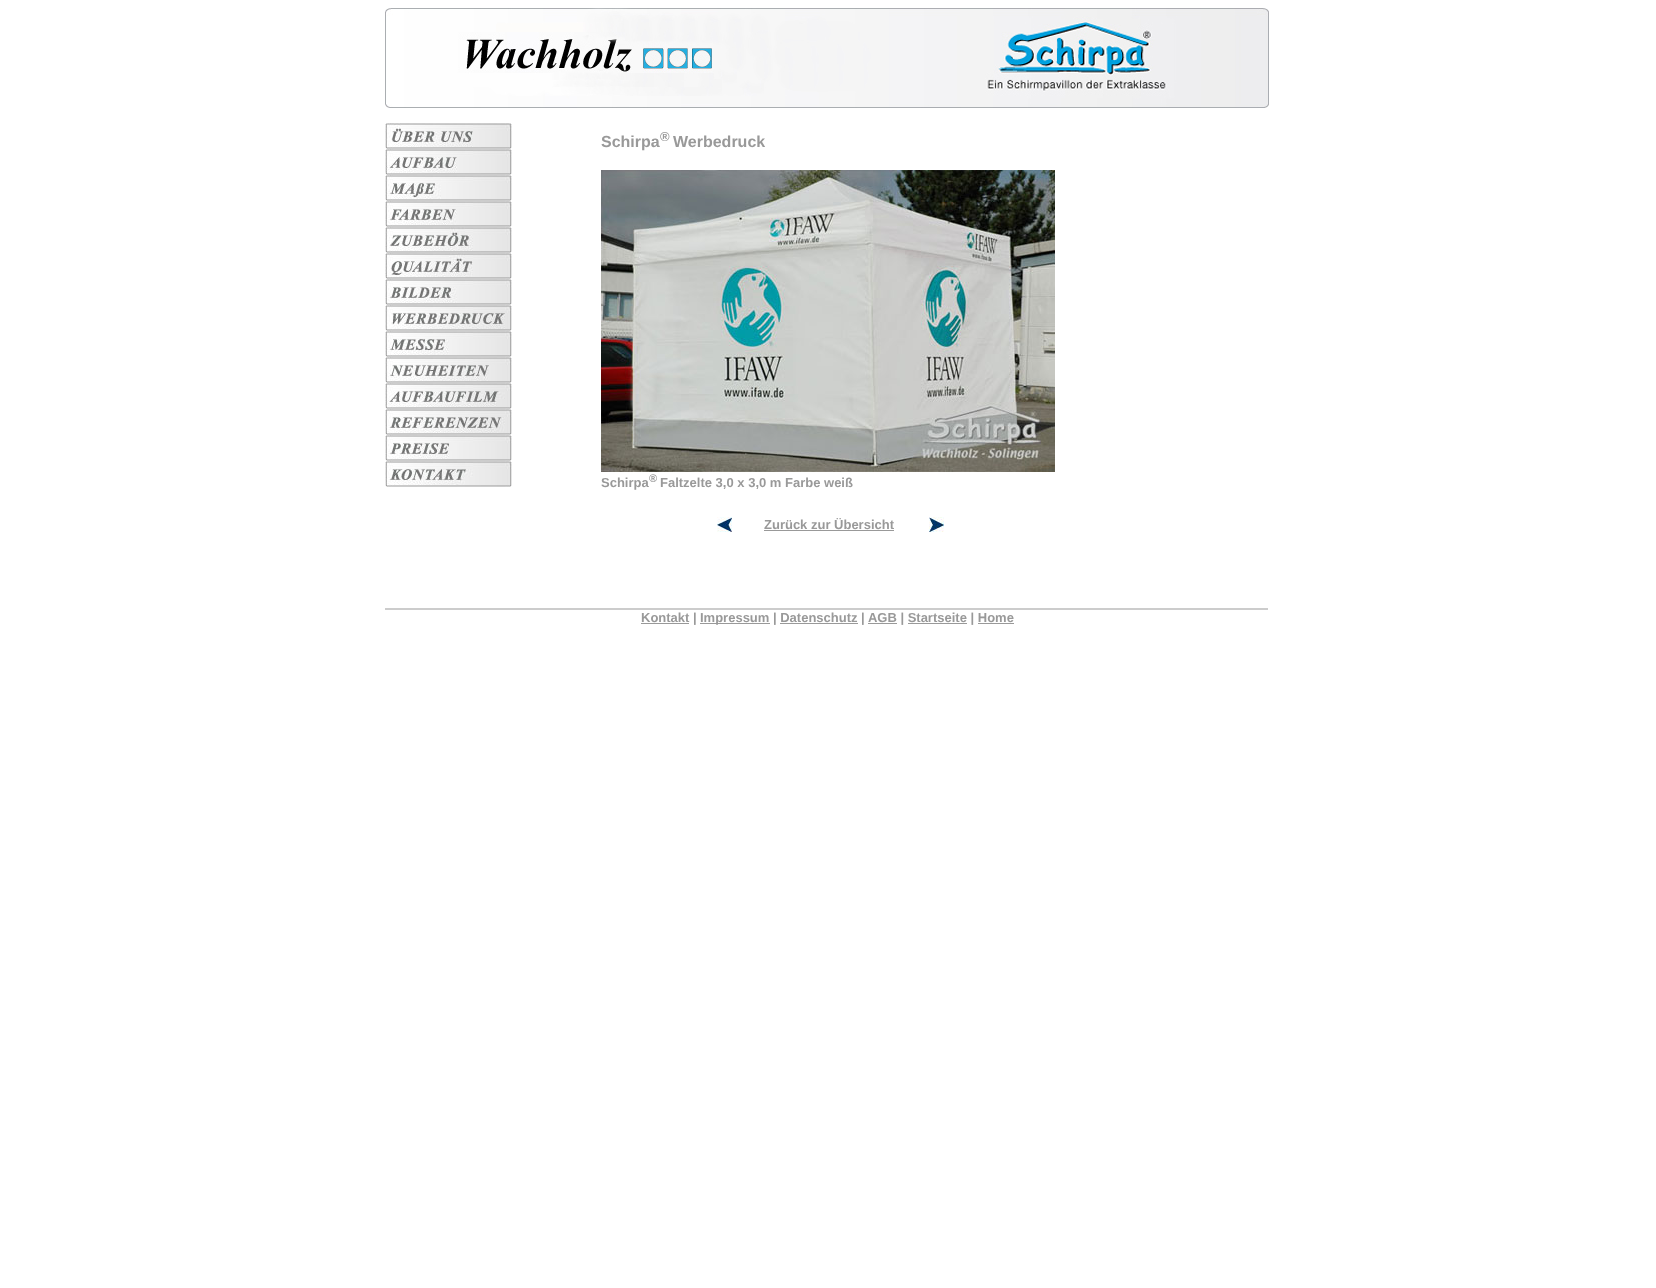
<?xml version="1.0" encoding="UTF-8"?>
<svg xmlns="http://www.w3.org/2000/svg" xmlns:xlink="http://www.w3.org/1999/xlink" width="1656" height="1288">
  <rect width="100%" height="100%" fill="#ffffff" />
  <image x="385" y="8" width="884" height="100" xlink:href="image1.png" />
  <image x="385" y="123" width="127" height="26" xlink:href="image2.png" />
  <image x="385" y="149" width="127" height="26" xlink:href="image3.png" />
  <image x="385" y="175" width="127" height="26" xlink:href="image4.png" />
  <image x="385" y="201" width="127" height="26" xlink:href="image5.png" />
  <image x="385" y="227" width="127" height="26" xlink:href="image6.png" />
  <image x="385" y="253" width="127" height="26" xlink:href="image7.png" />
  <image x="385" y="279" width="127" height="26" xlink:href="image8.png" />
  <image x="385" y="305" width="127" height="26" xlink:href="image9.png" />
  <image x="385" y="331" width="127" height="26" xlink:href="image10.png" />
  <image x="385" y="357" width="127" height="26" xlink:href="image11.png" />
  <image x="385" y="383" width="127" height="26" xlink:href="image12.png" />
  <image x="385" y="409" width="127" height="26" xlink:href="image13.png" />
  <image x="385" y="435" width="127" height="26" xlink:href="image14.png" />
  <image x="385" y="461" width="127" height="26" xlink:href="image15.png" />
  <image x="601" y="170" width="454" height="302" xlink:href="image16.png" />
  <image x="717" y="517" width="15" height="15" xlink:href="image17.png" />
  <rect x="764" y="530" width="130" height="1" fill="#999999" />
  <image x="929" y="517" width="15" height="15" xlink:href="image18.png" />
  <rect x="385" y="608" width="883" height="2" fill="#cccccc" />
  <rect x="641" y="623" width="48" height="1" fill="#999999" />
  <rect x="700" y="623" width="70" height="1" fill="#999999" />
  <rect x="780" y="623" width="78" height="1" fill="#999999" />
  <rect x="868" y="623" width="29" height="1" fill="#999999" />
  <rect x="908" y="623" width="59" height="1" fill="#999999" />
  <rect x="978" y="623" width="36" height="1" fill="#999999" />
  <text x="601" y="147" style="font-family: Liberation Sans; font-size: 16px; font-weight: bold; fill: #999999">Schirpa</text>
  <text x="660" y="141" style="font-family: Liberation Sans; font-size: 13px; font-weight: bold; fill: #999999">®</text>
  <text x="673" y="147" style="font-family: Liberation Sans; font-size: 16px; font-weight: bold; fill: #999999">Werbedruck</text>
  <text x="601" y="487" style="font-family: Liberation Sans; font-size: 13px; font-weight: bold; fill: #999999">Schirpa</text>
  <text x="649" y="482" style="font-family: Liberation Sans; font-size: 11px; font-weight: bold; fill: #999999">®</text>
  <text x="660" y="487" style="font-family: Liberation Sans; font-size: 13px; font-weight: bold; fill: #999999">Faltzelte 3,0 x 3,0 m Farbe weiß</text>
  <text x="764" y="529" style="font-family: Liberation Sans; font-size: 13px; font-weight: bold; fill: #999999">Zurück zur Übersicht</text>
  <text x="641" y="622" style="font-family: Liberation Sans; font-size: 13px; font-weight: bold; fill: #999999">Kontakt |</text>
  <text x="700" y="622" style="font-family: Liberation Sans; font-size: 13px; font-weight: bold; fill: #999999">Impressum | Datenschutz | AGB | Startseite | Home</text>
</svg>
